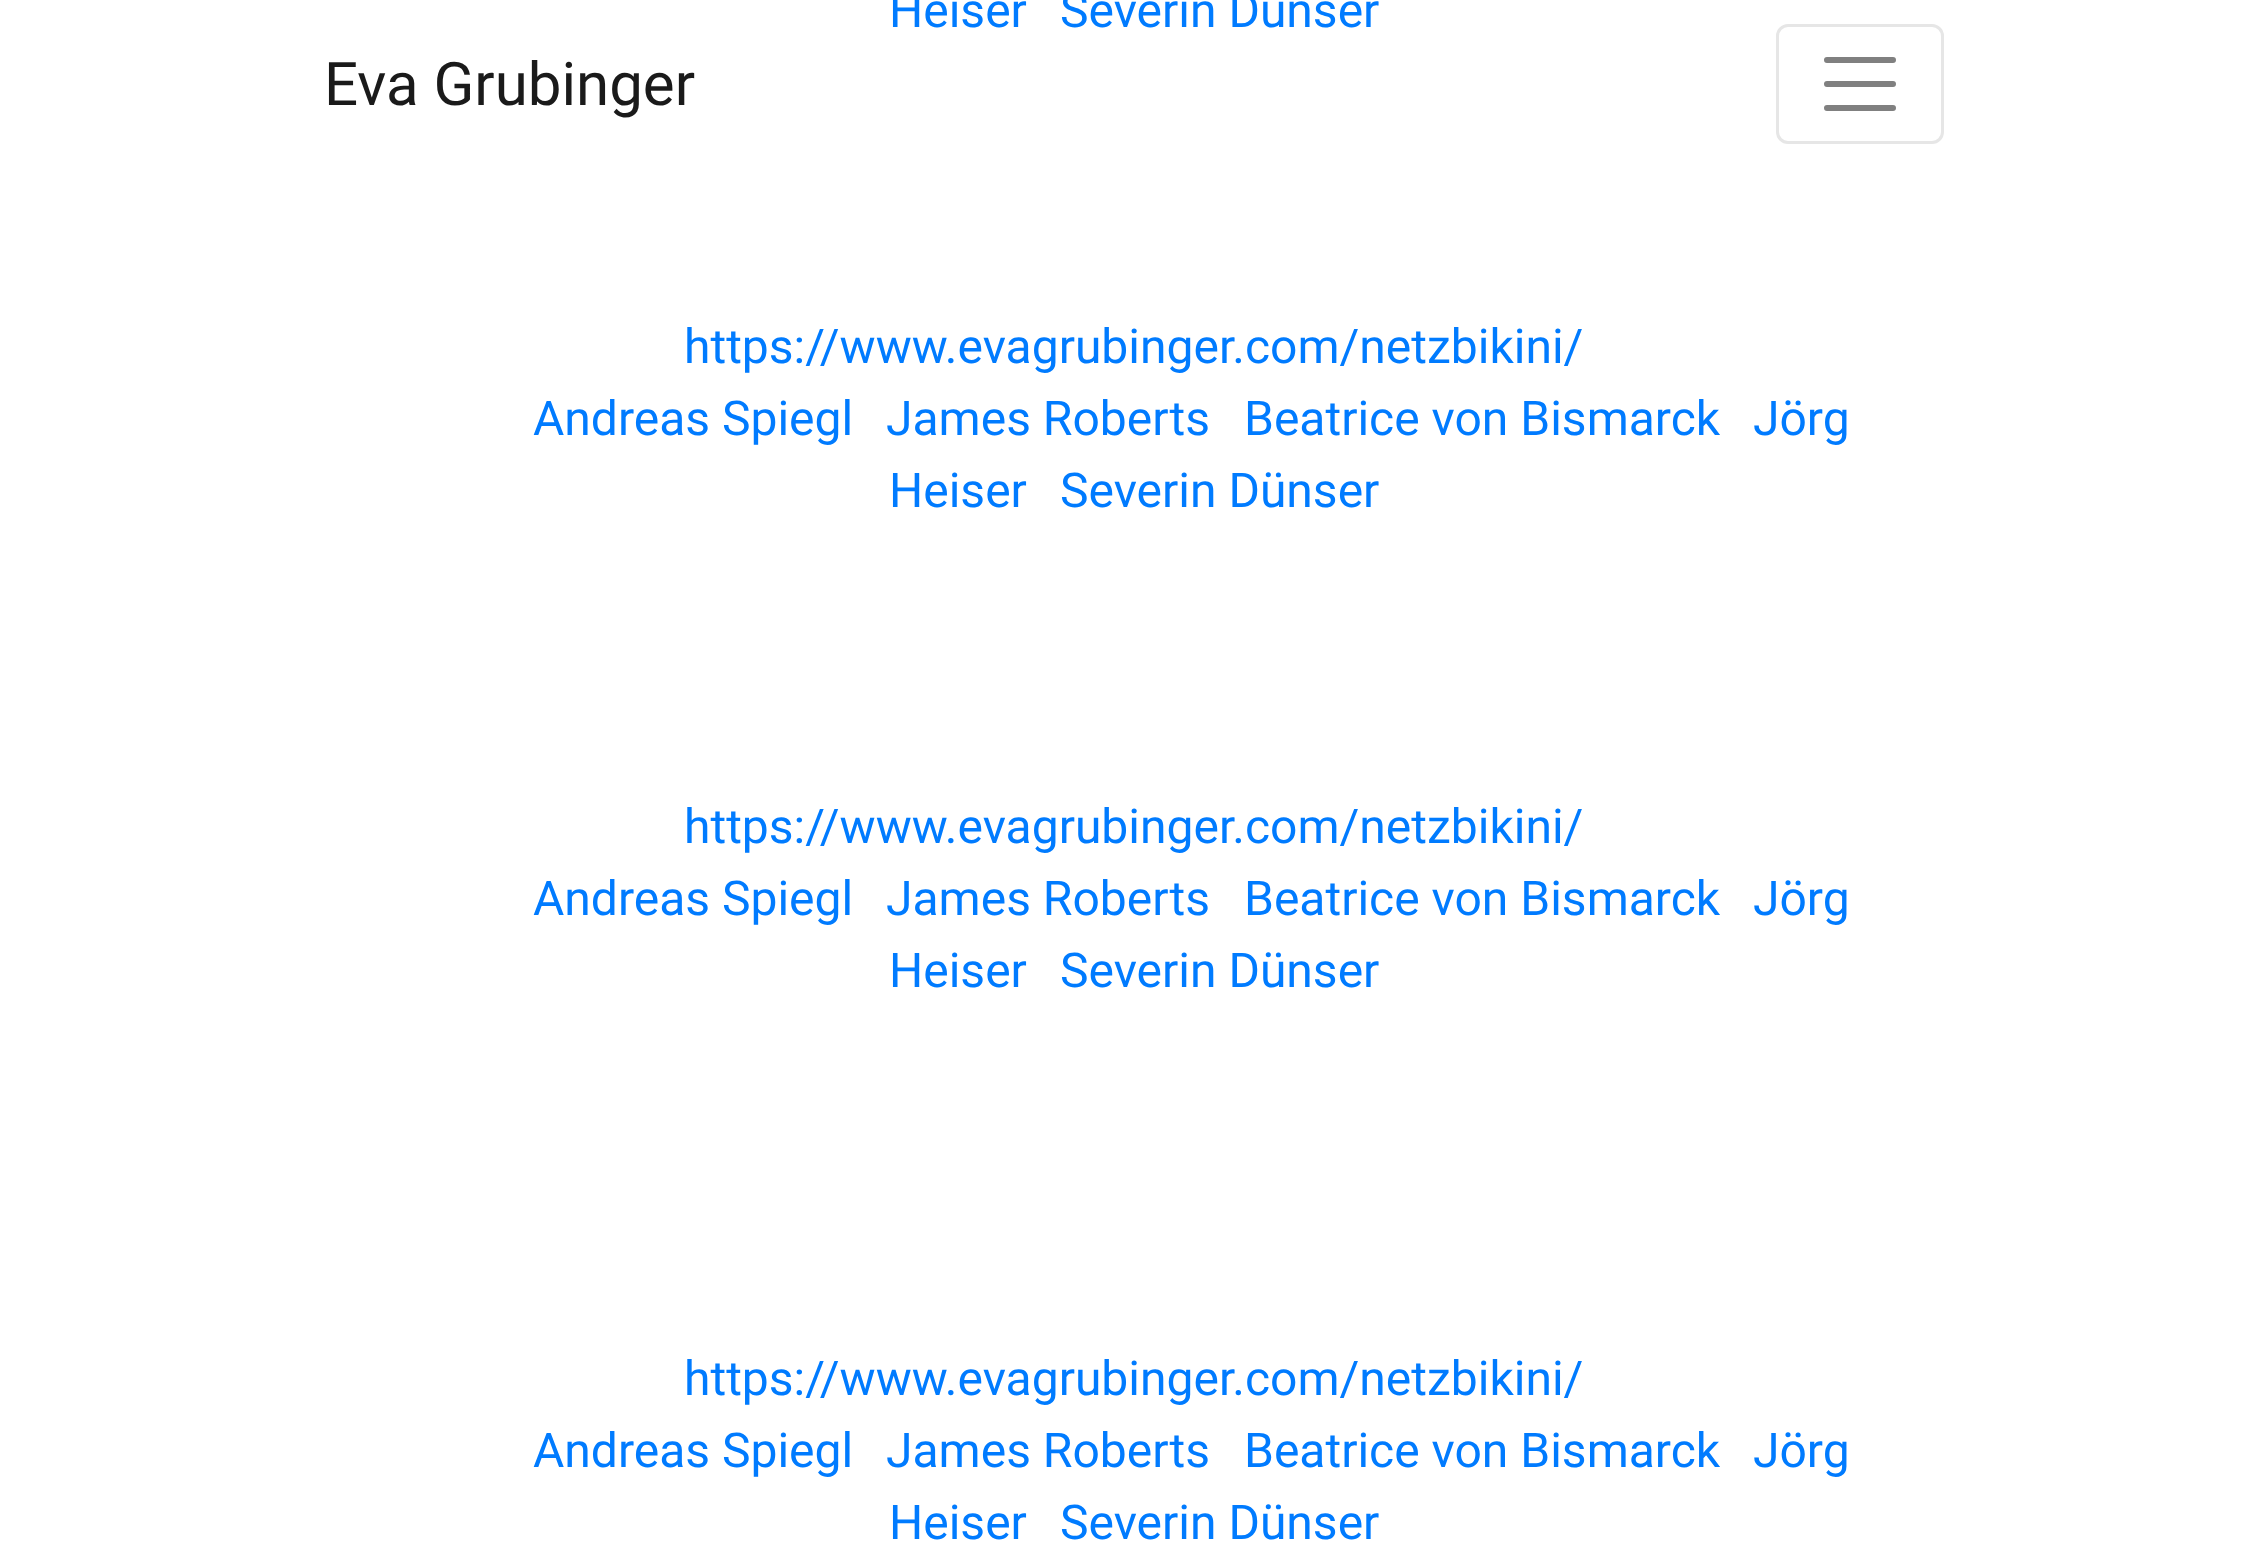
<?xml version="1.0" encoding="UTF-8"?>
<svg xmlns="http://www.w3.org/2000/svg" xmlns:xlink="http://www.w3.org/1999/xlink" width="2268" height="1567">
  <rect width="100%" height="100%" fill="#ffffff" />
  <rect x="1777.5" y="25.5" width="165" height="117" rx="10.5" fill="none" stroke="#e6e6e6" stroke-width="3" />
  <path d="M 1827 60 h 66 m -66 24 h 66 m -66 24 h 66" fill="none" stroke="#808080" stroke-width="6" stroke-linecap="round" />
  <text x="324" y="105" style="font-family: Roboto; font-size: 60px; fill: #1a1a1a">Eva Grubinger</text>
  <text x="889" y="27" style="font-family: Roboto; font-size: 48px; fill: #007bff">Heiser</text>
  <text x="1060" y="27" style="font-family: Roboto; font-size: 48px; fill: #007bff">Severin Dünser</text>
  <text x="684" y="363" style="font-family: Roboto; font-size: 48px; fill: #007bff">https://www.evagrubinger.com/netzbikini/</text>
  <text x="533" y="435" style="font-family: Roboto; font-size: 48px; fill: #007bff">Andreas Spiegl</text>
  <text x="886" y="435" style="font-family: Roboto; font-size: 48px; fill: #007bff">James Roberts</text>
  <text x="1244" y="435" style="font-family: Roboto; font-size: 48px; fill: #007bff">Beatrice von Bismarck</text>
  <text x="1753" y="435" style="font-family: Roboto; font-size: 48px; fill: #007bff">Jörg</text>
  <text x="889" y="507" style="font-family: Roboto; font-size: 48px; fill: #007bff">Heiser</text>
  <text x="1060" y="507" style="font-family: Roboto; font-size: 48px; fill: #007bff">Severin Dünser</text>
  <text x="684" y="843" style="font-family: Roboto; font-size: 48px; fill: #007bff">https://www.evagrubinger.com/netzbikini/</text>
  <text x="533" y="915" style="font-family: Roboto; font-size: 48px; fill: #007bff">Andreas Spiegl</text>
  <text x="886" y="915" style="font-family: Roboto; font-size: 48px; fill: #007bff">James Roberts</text>
  <text x="1244" y="915" style="font-family: Roboto; font-size: 48px; fill: #007bff">Beatrice von Bismarck</text>
  <text x="1753" y="915" style="font-family: Roboto; font-size: 48px; fill: #007bff">Jörg</text>
  <text x="889" y="987" style="font-family: Roboto; font-size: 48px; fill: #007bff">Heiser</text>
  <text x="1060" y="987" style="font-family: Roboto; font-size: 48px; fill: #007bff">Severin Dünser</text>
  <text x="684" y="1395" style="font-family: Roboto; font-size: 48px; fill: #007bff">https://www.evagrubinger.com/netzbikini/</text>
  <text x="533" y="1467" style="font-family: Roboto; font-size: 48px; fill: #007bff">Andreas Spiegl</text>
  <text x="886" y="1467" style="font-family: Roboto; font-size: 48px; fill: #007bff">James Roberts</text>
  <text x="1244" y="1467" style="font-family: Roboto; font-size: 48px; fill: #007bff">Beatrice von Bismarck</text>
  <text x="1753" y="1467" style="font-family: Roboto; font-size: 48px; fill: #007bff">Jörg</text>
  <text x="889" y="1539" style="font-family: Roboto; font-size: 48px; fill: #007bff">Heiser</text>
  <text x="1060" y="1539" style="font-family: Roboto; font-size: 48px; fill: #007bff">Severin Dünser</text>
</svg>
